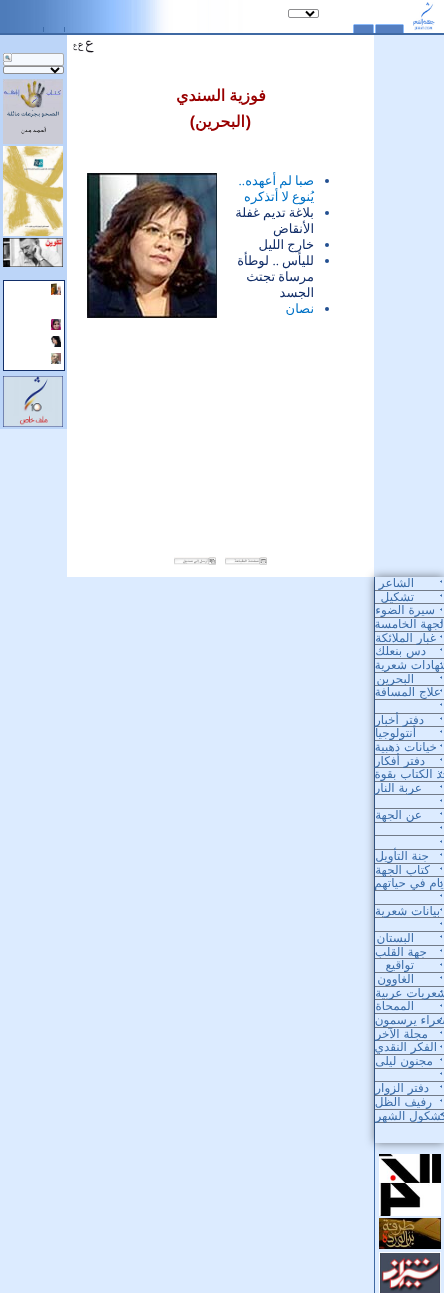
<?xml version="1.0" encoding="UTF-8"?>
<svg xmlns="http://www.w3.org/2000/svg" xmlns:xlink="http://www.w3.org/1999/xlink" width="444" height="1293">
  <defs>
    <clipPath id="clip1"><path d="M 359 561 h 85 v 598 h -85 z m 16 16 h 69 v 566 h -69 z" clip-rule="evenodd" /></clipPath>
  </defs>
  <rect width="100%" height="100%" fill="#dcebff" />
  <image x="0" y="0" width="444" height="33" xlink:href="image1.png" />
  <image x="413" y="2" width="22" height="29" xlink:href="image2.png" />
  <rect x="288.5" y="9.5" width="30" height="8" rx="1.5" fill="none" stroke="#8d8d8f" />
  <path d="M 306 11.5 l 4 4 l 4 -4" fill="none" stroke="#000000" stroke-width="2" />
  <path d="M 377 24 h 25 c 1 0 2 1 2 2 v 7 h -29 v -7 c 0 -1 1 -2 2 -2 z" fill="#547ec0" />
  <rect x="376" y="24" width="27" height="1" fill="#8bbbfb" />
  <rect x="403" y="25" width="1" height="8" fill="#8bbbfb" />
  <rect x="375" y="25" width="1" height="8" fill="#8bbbfb" />
  <path d="M 355 24 h 17 c 1 0 2 1 2 2 v 7 h -21 v -7 c 0 -1 1 -2 2 -2 z" fill="#547ec0" />
  <rect x="354" y="24" width="19" height="1" fill="#8bbbfb" />
  <rect x="373" y="25" width="1" height="8" fill="#8bbbfb" />
  <rect x="353" y="25" width="1" height="8" fill="#8bbbfb" />
  <rect x="64" y="27" width="1" height="5" fill="#3d6caa" />
  <rect x="43" y="27" width="1" height="5" fill="#3d6caa" />
  <rect y="33" width="444" height="2" fill="#3f69a3" />
  <rect x="67" y="35" width="307" height="542" fill="#ffffff" />
  <image x="86" y="40" width="8" height="13" xlink:href="image3.png" />
  <image x="78" y="42" width="6" height="11" xlink:href="image4.png" />
  <image x="73" y="43" width="5" height="8" xlink:href="image5.png" />
  <circle cx="327" cy="181" r="2" fill="#235091" />
  <image x="87" y="173" width="130" height="145" xlink:href="image6.png" />
  <circle cx="327" cy="213" r="2" fill="#235091" />
  <circle cx="327" cy="245" r="2" fill="#235091" />
  <circle cx="327" cy="261" r="2" fill="#235091" />
  <circle cx="327" cy="309" r="2" fill="#235091" />
  <image x="225" y="557" width="42" height="8" xlink:href="image7.png" />
  <image x="174" y="557" width="42" height="8" xlink:href="image8.png" />
  <rect y="35" width="67" height="394" fill="#bcd5f8" />
  <rect x="3.5" y="53.5" width="60" height="12" rx="1.5" fill="#f5f9fe" stroke="#ababab" />
  <image x="3" y="53" width="9" height="9" xlink:href="image9.png" />
  <rect x="3.5" y="66.5" width="60" height="7" rx="1.5" fill="#f5f9fe" stroke="#8d8d8f" />
  <path d="M 51 68 l 4 4 l 4 -4" fill="none" stroke="#000000" stroke-width="2" />
  <image x="3" y="79" width="60" height="65" xlink:href="image10.png" />
  <image x="3" y="146" width="60" height="90" xlink:href="image11.png" />
  <image x="3" y="238" width="60" height="29" xlink:href="image12.png" />
  <rect x="3.5" y="280.5" width="61" height="90" fill="#ffffff" stroke="#122e68" />
  <image x="51" y="283" width="10" height="12" xlink:href="image13.png" />
  <image x="51" y="319" width="10" height="11" xlink:href="image14.png" />
  <image x="51" y="336" width="10" height="11" xlink:href="image15.png" />
  <image x="51" y="353" width="10" height="11" xlink:href="image16.png" />
  <image x="3" y="376" width="60" height="51" xlink:href="image17.png" />
  <rect x="374" y="577" width="1" height="716" fill="#3f69a3" />
  <image x="379" y="1154" width="62" height="62" xlink:href="image19.png" />
  <g clip-path="url(#clip1)">
    <rect x="375" y="577" width="69" height="566" fill="#000000" fill-opacity="0.5" filter="blur(5px)" />
  </g>
  <image x="440" y="580" width="2" height="3" xlink:href="image18.png" />
  <rect x="375" y="590" width="69" height="1" fill="#727a87" />
  <image x="440" y="594" width="2" height="3" xlink:href="image18.png" />
  <rect x="375" y="603" width="69" height="1" fill="#727a87" />
  <image x="440" y="608" width="2" height="3" xlink:href="image18.png" />
  <rect x="375" y="617" width="69" height="1" fill="#727a87" />
  <image x="440" y="621" width="2" height="3" xlink:href="image18.png" />
  <rect x="375" y="631" width="69" height="1" fill="#727a87" />
  <image x="440" y="635" width="2" height="3" xlink:href="image18.png" />
  <rect x="375" y="644" width="69" height="1" fill="#727a87" />
  <image x="440" y="648" width="2" height="3" xlink:href="image18.png" />
  <rect x="375" y="658" width="69" height="1" fill="#727a87" />
  <image x="440" y="662" width="2" height="3" xlink:href="image18.png" />
  <rect x="375" y="672" width="69" height="1" fill="#727a87" />
  <image x="440" y="676" width="2" height="3" xlink:href="image18.png" />
  <rect x="375" y="685" width="69" height="1" fill="#727a87" />
  <image x="440" y="689" width="2" height="3" xlink:href="image18.png" />
  <rect x="375" y="699" width="69" height="1" fill="#727a87" />
  <image x="440" y="703" width="2" height="3" xlink:href="image18.png" />
  <rect x="375" y="713" width="69" height="1" fill="#727a87" />
  <image x="440" y="717" width="2" height="3" xlink:href="image18.png" />
  <rect x="375" y="726" width="69" height="1" fill="#727a87" />
  <image x="440" y="730" width="2" height="3" xlink:href="image18.png" />
  <rect x="375" y="740" width="69" height="1" fill="#727a87" />
  <image x="440" y="744" width="2" height="3" xlink:href="image18.png" />
  <rect x="375" y="754" width="69" height="1" fill="#727a87" />
  <image x="440" y="758" width="2" height="3" xlink:href="image18.png" />
  <rect x="375" y="767" width="69" height="1" fill="#727a87" />
  <image x="440" y="771" width="2" height="3" xlink:href="image18.png" />
  <rect x="375" y="781" width="69" height="1" fill="#727a87" />
  <image x="440" y="785" width="2" height="3" xlink:href="image18.png" />
  <rect x="375" y="794" width="69" height="1" fill="#727a87" />
  <image x="440" y="799" width="2" height="3" xlink:href="image18.png" />
  <rect x="375" y="808" width="69" height="1" fill="#727a87" />
  <image x="440" y="812" width="2" height="3" xlink:href="image18.png" />
  <rect x="375" y="822" width="69" height="1" fill="#727a87" />
  <image x="440" y="826" width="2" height="3" xlink:href="image18.png" />
  <rect x="375" y="835" width="69" height="1" fill="#727a87" />
  <image x="440" y="840" width="2" height="3" xlink:href="image18.png" />
  <rect x="375" y="849" width="69" height="1" fill="#727a87" />
  <image x="440" y="853" width="2" height="3" xlink:href="image18.png" />
  <rect x="375" y="863" width="69" height="1" fill="#727a87" />
  <image x="440" y="867" width="2" height="3" xlink:href="image18.png" />
  <rect x="375" y="876" width="69" height="1" fill="#727a87" />
  <image x="440" y="881" width="2" height="3" xlink:href="image18.png" />
  <rect x="375" y="890" width="69" height="1" fill="#727a87" />
  <image x="440" y="894" width="2" height="3" xlink:href="image18.png" />
  <rect x="375" y="904" width="69" height="1" fill="#727a87" />
  <image x="440" y="908" width="2" height="3" xlink:href="image18.png" />
  <rect x="375" y="917" width="69" height="1" fill="#727a87" />
  <image x="440" y="922" width="2" height="3" xlink:href="image18.png" />
  <rect x="375" y="931" width="69" height="1" fill="#727a87" />
  <image x="440" y="935" width="2" height="3" xlink:href="image18.png" />
  <rect x="375" y="945" width="69" height="1" fill="#727a87" />
  <image x="440" y="949" width="2" height="3" xlink:href="image18.png" />
  <rect x="375" y="958" width="69" height="1" fill="#727a87" />
  <image x="440" y="963" width="2" height="3" xlink:href="image18.png" />
  <rect x="375" y="972" width="69" height="1" fill="#727a87" />
  <image x="440" y="976" width="2" height="3" xlink:href="image18.png" />
  <rect x="375" y="986" width="69" height="1" fill="#727a87" />
  <image x="440" y="990" width="2" height="3" xlink:href="image18.png" />
  <rect x="375" y="999" width="69" height="1" fill="#727a87" />
  <image x="440" y="1004" width="2" height="3" xlink:href="image18.png" />
  <rect x="375" y="1013" width="69" height="1" fill="#727a87" />
  <image x="440" y="1017" width="2" height="3" xlink:href="image18.png" />
  <rect x="375" y="1027" width="69" height="1" fill="#727a87" />
  <image x="440" y="1031" width="2" height="3" xlink:href="image18.png" />
  <rect x="375" y="1040" width="69" height="1" fill="#727a87" />
  <image x="440" y="1045" width="2" height="3" xlink:href="image18.png" />
  <rect x="375" y="1054" width="69" height="1" fill="#727a87" />
  <image x="440" y="1058" width="2" height="3" xlink:href="image18.png" />
  <rect x="375" y="1068" width="69" height="1" fill="#727a87" />
  <image x="440" y="1072" width="2" height="3" xlink:href="image18.png" />
  <rect x="375" y="1081" width="69" height="1" fill="#727a87" />
  <image x="440" y="1085" width="2" height="3" xlink:href="image18.png" />
  <rect x="375" y="1095" width="69" height="1" fill="#727a87" />
  <image x="440" y="1099" width="2" height="3" xlink:href="image18.png" />
  <rect x="375" y="1109" width="69" height="1" fill="#727a87" />
  <image x="440" y="1113" width="2" height="3" xlink:href="image18.png" />
  <rect x="375" y="1122" width="69" height="1" fill="#727a87" />
  <image x="379" y="1218" width="62" height="31" xlink:href="image20.png" />
  <image x="379" y="1252" width="62" height="41" xlink:href="image21.png" />
  <text x="266" y="101" word-spacing="-1" style="font-family: DejaVu Sans; font-size: 16px; font-weight: bold; direction: rtl; fill: #990000">فوزية السندي</text>
  <text x="251" y="127" style="font-family: Liberation Sans; font-size: 16px; font-weight: bold; direction: rtl; fill: #990000">(</text>
  <text x="245" y="127" style="font-family: DejaVu Sans; font-size: 16px; font-weight: bold; direction: rtl; fill: #990000">البحرين</text>
  <text x="195" y="127" style="font-family: Liberation Sans; font-size: 16px; font-weight: bold; direction: rtl; fill: #990000">)</text>
  <text x="314" y="185" word-spacing="-1" style="font-family: DejaVu Sans; font-size: 13px; direction: rtl; fill: #0072c6">صبا لم أعهده</text>
  <text x="245" y="185" style="font-family: Liberation Serif; font-size: 13px; direction: rtl; fill: #0072c6">..</text>
  <text x="314" y="201" word-spacing="-1" style="font-family: DejaVu Sans; font-size: 13px; direction: rtl; fill: #0072c6">يُنوع لا أتذكره</text>
  <text x="314" y="217" word-spacing="-1" style="font-family: DejaVu Sans; font-size: 13px; direction: rtl; fill: #122e68">بلاغة تديم غفلة</text>
  <text x="314" y="233" style="font-family: DejaVu Sans; font-size: 13px; direction: rtl; fill: #122e68">الأنقاض</text>
  <text x="314" y="249" word-spacing="-1" style="font-family: DejaVu Sans; font-size: 13px; direction: rtl; fill: #122e68">خارج الليل</text>
  <text x="314" y="265" style="font-family: DejaVu Sans; font-size: 13px; direction: rtl; fill: #122e68">لليأس</text>
  <text x="269" y="265" style="font-family: DejaVu Sans; font-size: 13px; direction: rtl; fill: #122e68">لوطأة</text>
  <text x="279" y="265" style="font-family: Liberation Serif; font-size: 13px; direction: rtl; fill: #122e68">..</text>
  <text x="314" y="281" word-spacing="-1" style="font-family: DejaVu Sans; font-size: 13px; direction: rtl; fill: #122e68">مرساة تجتث</text>
  <text x="314" y="297" style="font-family: DejaVu Sans; font-size: 13px; direction: rtl; fill: #122e68">الجسد</text>
  <text x="314" y="313" style="font-family: DejaVu Sans; font-size: 13px; direction: rtl; fill: #0072c6">نصان</text>
  <text x="414" y="587" style="font-family: DejaVu Sans; font-size: 12px; direction: rtl; fill: #3c6da8">الشاعر</text>
  <text x="414" y="601" style="font-family: DejaVu Sans; font-size: 12px; direction: rtl; fill: #3c6da8">تشكيل</text>
  <text x="435" y="614" style="font-family: DejaVu Sans; font-size: 12px; direction: rtl; fill: #3c6da8">سيرة الضوء</text>
  <text x="447" y="628" style="font-family: DejaVu Sans; font-size: 12px; direction: rtl; fill: #3c6da8">الجهة الخامسة</text>
  <text x="436" y="642" style="font-family: DejaVu Sans; font-size: 12px; direction: rtl; fill: #3c6da8">غبار الملائكة</text>
  <text x="426" y="655" style="font-family: DejaVu Sans; font-size: 12px; direction: rtl; fill: #3c6da8">دس بنعلك</text>
  <text x="450" y="669" style="font-family: DejaVu Sans; font-size: 12px; direction: rtl; fill: #3c6da8">شهادات شعرية</text>
  <text x="414" y="683" style="font-family: DejaVu Sans; font-size: 12px; direction: rtl; fill: #3c6da8">البحرين</text>
  <text x="441" y="696" style="font-family: DejaVu Sans; font-size: 12px; direction: rtl; fill: #3c6da8">علاج المسافة</text>
  <text x="424" y="724" style="font-family: DejaVu Sans; font-size: 12px; direction: rtl; fill: #3c6da8">دفتر أخبار</text>
  <text x="416" y="737" style="font-family: DejaVu Sans; font-size: 12px; direction: rtl; fill: #3c6da8">أنتولوجيا</text>
  <text x="437" y="751" style="font-family: DejaVu Sans; font-size: 12px; direction: rtl; fill: #3c6da8">خيانات ذهبية</text>
  <text x="425" y="765" style="font-family: DejaVu Sans; font-size: 12px; direction: rtl; fill: #3c6da8">دفتر أفكار</text>
  <text x="450" y="778" style="font-family: DejaVu Sans; font-size: 12px; direction: rtl; fill: #3c6da8">خذ الكتاب بقوة</text>
  <text x="422" y="792" style="font-family: DejaVu Sans; font-size: 12px; direction: rtl; fill: #3c6da8">عربة النار</text>
  <text x="422" y="819" style="font-family: DejaVu Sans; font-size: 12px; direction: rtl; fill: #3c6da8">عن الجهة</text>
  <text x="429" y="860" style="font-family: DejaVu Sans; font-size: 12px; direction: rtl; fill: #3c6da8">جنة التأويل</text>
  <text x="430" y="874" style="font-family: DejaVu Sans; font-size: 12px; direction: rtl; fill: #3c6da8">كتاب الجهة</text>
  <text x="447" y="887" style="font-family: DejaVu Sans; font-size: 12px; direction: rtl; fill: #3c6da8">أيام في حياتهم</text>
  <text x="440" y="915" style="font-family: DejaVu Sans; font-size: 12px; direction: rtl; fill: #3c6da8">بيانات شعرية</text>
  <text x="414" y="942" style="font-family: DejaVu Sans; font-size: 12px; direction: rtl; fill: #3c6da8">البستان</text>
  <text x="427" y="956" style="font-family: DejaVu Sans; font-size: 12px; direction: rtl; fill: #3c6da8">جهة القلب</text>
  <text x="414" y="969" style="font-family: DejaVu Sans; font-size: 12px; direction: rtl; fill: #3c6da8">تواقيع</text>
  <text x="414" y="983" style="font-family: DejaVu Sans; font-size: 12px; direction: rtl; fill: #3c6da8">الغاوون</text>
  <text x="447" y="997" style="font-family: DejaVu Sans; font-size: 12px; direction: rtl; fill: #3c6da8">شعريات عربية</text>
  <text x="414" y="1010" style="font-family: DejaVu Sans; font-size: 12px; direction: rtl; fill: #3c6da8">الممحاة</text>
  <text x="452" y="1024" style="font-family: DejaVu Sans; font-size: 12px; direction: rtl; fill: #3c6da8">شعراء يرسمون</text>
  <text x="428" y="1038" style="font-family: DejaVu Sans; font-size: 12px; direction: rtl; fill: #3c6da8">مجلة الآخر</text>
  <text x="437" y="1051" style="font-family: DejaVu Sans; font-size: 12px; direction: rtl; fill: #3c6da8">الفكر النقدي</text>
  <text x="433" y="1065" style="font-family: DejaVu Sans; font-size: 12px; direction: rtl; fill: #3c6da8">مجنون ليلى</text>
  <text x="429" y="1092" style="font-family: DejaVu Sans; font-size: 12px; direction: rtl; fill: #3c6da8">دفتر الزوار</text>
  <text x="432" y="1106" style="font-family: DejaVu Sans; font-size: 12px; direction: rtl; fill: #3c6da8">رفيف الظل</text>
  <text x="447" y="1120" style="font-family: DejaVu Sans; font-size: 12px; direction: rtl; fill: #3c6da8">كشكول الشهر</text>
</svg>
